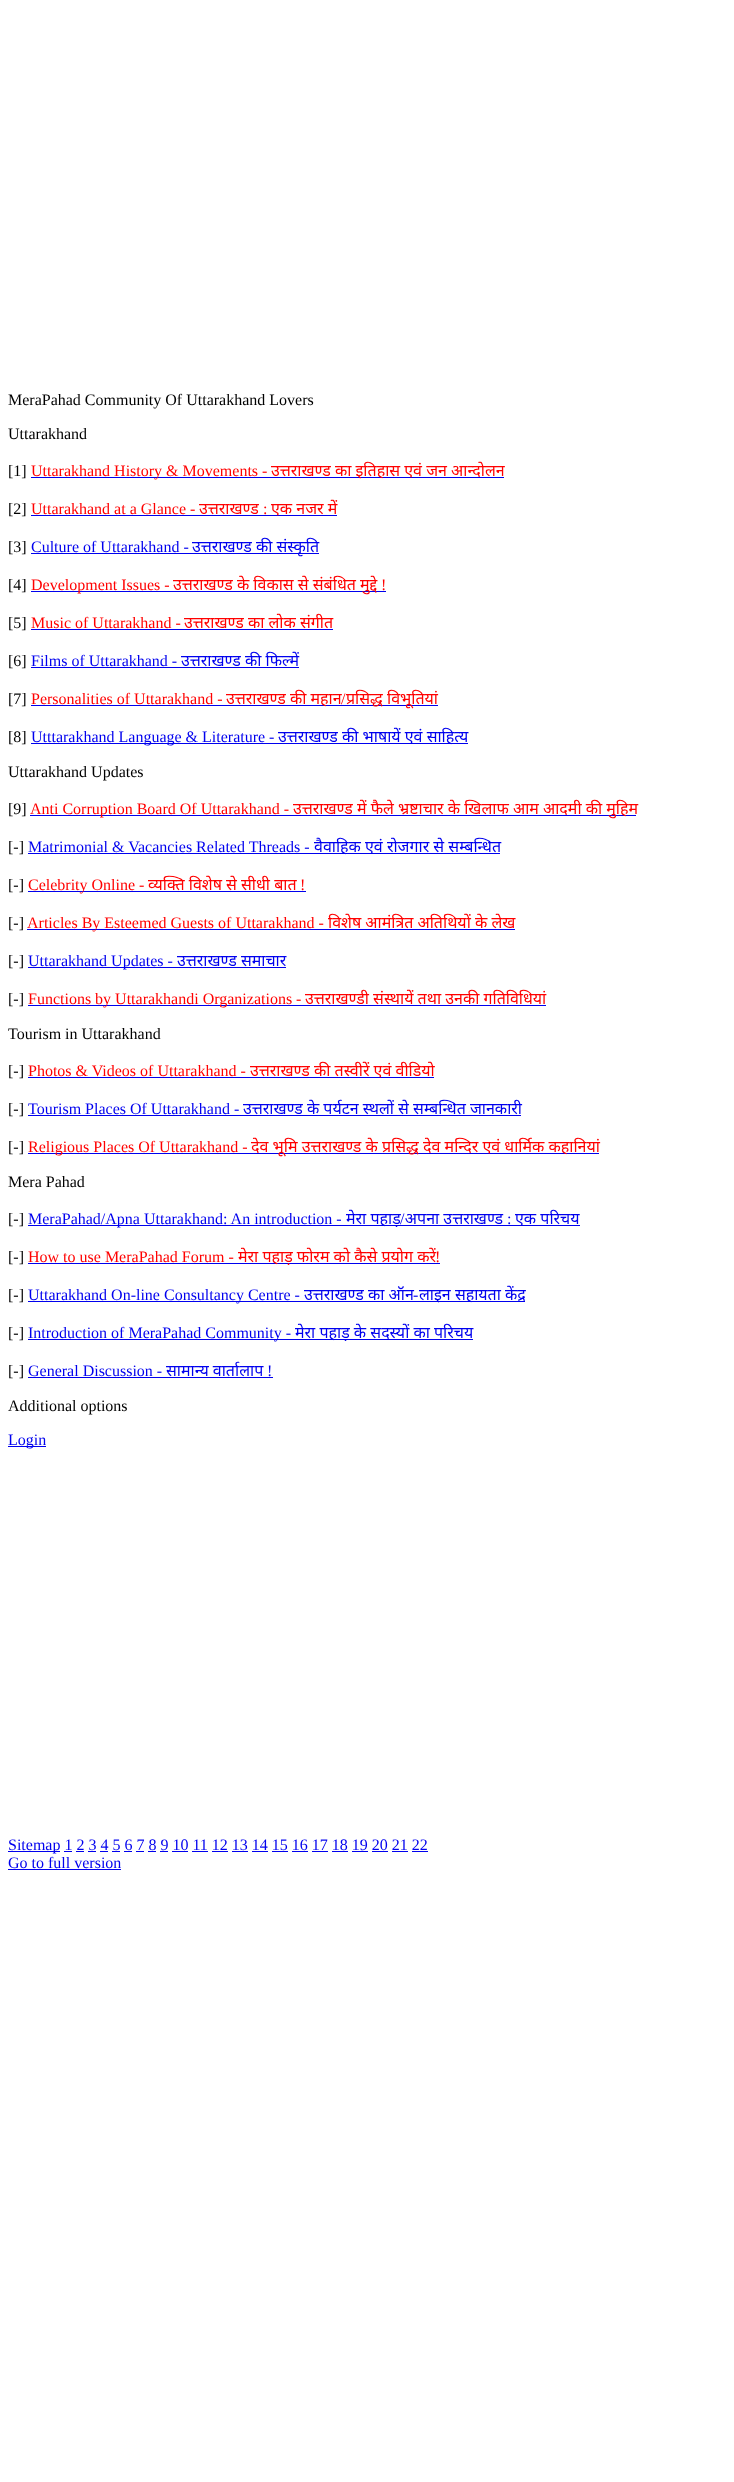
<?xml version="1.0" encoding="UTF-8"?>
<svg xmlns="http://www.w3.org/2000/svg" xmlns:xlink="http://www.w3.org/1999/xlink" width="734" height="2482">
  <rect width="100%" height="100%" fill="#ffffff" />
  <rect x="31" y="477" width="473" height="1" fill="#0000ee" />
  <rect x="31" y="515" width="306" height="1" fill="#0000ee" />
  <rect x="31" y="553" width="288" height="1" fill="#0000ee" />
  <rect x="31" y="591" width="355" height="1" fill="#0000ee" />
  <rect x="31" y="629" width="302" height="1" fill="#0000ee" />
  <rect x="31" y="667" width="268" height="1" fill="#0000ee" />
  <rect x="31" y="705" width="407" height="1" fill="#0000ee" />
  <rect x="31" y="743" width="437" height="1" fill="#0000ee" />
  <rect x="30" y="815" width="606" height="1" fill="#0000ee" />
  <rect x="28" y="853" width="472" height="1" fill="#0000ee" />
  <rect x="28" y="891" width="278" height="1" fill="#0000ee" />
  <rect x="27" y="929" width="488" height="1" fill="#0000ee" />
  <rect x="28" y="967" width="258" height="1" fill="#0000ee" />
  <rect x="28" y="1005" width="518" height="1" fill="#0000ee" />
  <rect x="28" y="1077" width="406" height="1" fill="#0000ee" />
  <rect x="28" y="1115" width="493" height="1" fill="#0000ee" />
  <rect x="28" y="1153" width="571" height="1" fill="#0000ee" />
  <rect x="28" y="1225" width="552" height="1" fill="#0000ee" />
  <rect x="28" y="1263" width="412" height="1" fill="#0000ee" />
  <rect x="28" y="1301" width="497" height="1" fill="#0000ee" />
  <rect x="28" y="1339" width="445" height="1" fill="#0000ee" />
  <rect x="28" y="1377" width="245" height="1" fill="#0000ee" />
  <rect x="8" y="1446" width="38" height="1" fill="#0000ee" />
  <rect x="8" y="1851" width="52" height="1" fill="#0000ee" />
  <rect x="64" y="1851" width="8" height="1" fill="#0000ee" />
  <rect x="76" y="1851" width="8" height="1" fill="#0000ee" />
  <rect x="88" y="1851" width="8" height="1" fill="#0000ee" />
  <rect x="100" y="1851" width="8" height="1" fill="#0000ee" />
  <rect x="112" y="1851" width="8" height="1" fill="#0000ee" />
  <rect x="124" y="1851" width="8" height="1" fill="#0000ee" />
  <rect x="136" y="1851" width="8" height="1" fill="#0000ee" />
  <rect x="148" y="1851" width="8" height="1" fill="#0000ee" />
  <rect x="160" y="1851" width="8" height="1" fill="#0000ee" />
  <rect x="172" y="1851" width="16" height="1" fill="#0000ee" />
  <rect x="192" y="1851" width="16" height="1" fill="#0000ee" />
  <rect x="212" y="1851" width="16" height="1" fill="#0000ee" />
  <rect x="232" y="1851" width="16" height="1" fill="#0000ee" />
  <rect x="252" y="1851" width="16" height="1" fill="#0000ee" />
  <rect x="272" y="1851" width="16" height="1" fill="#0000ee" />
  <rect x="292" y="1851" width="16" height="1" fill="#0000ee" />
  <rect x="312" y="1851" width="16" height="1" fill="#0000ee" />
  <rect x="332" y="1851" width="16" height="1" fill="#0000ee" />
  <rect x="352" y="1851" width="16" height="1" fill="#0000ee" />
  <rect x="372" y="1851" width="16" height="1" fill="#0000ee" />
  <rect x="392" y="1851" width="16" height="1" fill="#0000ee" />
  <rect x="412" y="1851" width="16" height="1" fill="#0000ee" />
  <rect x="8" y="1869" width="113" height="1" fill="#0000ee" />
  <text x="8" y="405" style="font-family: Liberation Serif; font-size: 16px; fill: #000000">MeraPahad Community Of Uttarakhand Lovers</text>
  <text x="8" y="439" style="font-family: Liberation Serif; font-size: 16px; fill: #000000">Uttarakhand</text>
  <text x="8" y="476" style="font-family: Liberation Serif; font-size: 16px; fill: #000000">[1]</text>
  <text x="31" y="476" style="font-family: Liberation Serif; font-size: 16px; fill: #ff0000">Uttarakhand History &amp; Movements -</text>
  <text x="271" y="476" style="font-family: Noto Sans; font-size: 16px; fill: #ff0000">उत्तराखण्ड का इतिहास एवं जन आन्दोलन</text>
  <text x="8" y="514" style="font-family: Liberation Serif; font-size: 16px; fill: #000000">[2]</text>
  <text x="31" y="514" style="font-family: Liberation Serif; font-size: 16px; fill: #ff0000">Uttarakhand at a Glance -</text>
  <text x="199" y="514" style="font-family: Noto Sans; font-size: 16px; fill: #ff0000">उत्तराखण्ड</text>
  <text x="263" y="514" style="font-family: Liberation Serif; font-size: 16px; fill: #ff0000">:</text>
  <text x="271" y="514" style="font-family: Noto Sans; font-size: 16px; fill: #ff0000">एक नजर में</text>
  <text x="8" y="552" style="font-family: Liberation Serif; font-size: 16px; fill: #000000">[3]</text>
  <text x="31" y="552" style="font-family: Liberation Serif; font-size: 16px; fill: #0000ee">Culture of Uttarakhand -</text>
  <text x="192" y="552" style="font-family: Noto Sans; font-size: 16px; fill: #0000ee">उत्तराखण्ड की संस्कृति</text>
  <text x="8" y="590" style="font-family: Liberation Serif; font-size: 16px; fill: #000000">[4]</text>
  <text x="31" y="590" style="font-family: Liberation Serif; font-size: 16px; fill: #ff0000">Development Issues -</text>
  <text x="173" y="590" style="font-family: Noto Sans; font-size: 16px; fill: #ff0000">उत्तराखण्ड के विकास से संबंधित मुद्दे</text>
  <text x="381" y="590" style="font-family: Liberation Serif; font-size: 16px; fill: #ff0000">!</text>
  <text x="8" y="628" style="font-family: Liberation Serif; font-size: 16px; fill: #000000">[5]</text>
  <text x="31" y="628" style="font-family: Liberation Serif; font-size: 16px; fill: #ff0000">Music of Uttarakhand -</text>
  <text x="184" y="628" style="font-family: Noto Sans; font-size: 16px; fill: #ff0000">उत्तराखण्ड का लोक संगीत</text>
  <text x="8" y="666" style="font-family: Liberation Serif; font-size: 16px; fill: #000000">[6]</text>
  <text x="31" y="666" style="font-family: Liberation Serif; font-size: 16px; fill: #0000ee">Films of Uttarakhand -</text>
  <text x="181" y="666" style="font-family: Noto Sans; font-size: 16px; fill: #0000ee">उत्तराखण्ड की फिल्में</text>
  <text x="8" y="704" style="font-family: Liberation Serif; font-size: 16px; fill: #000000">[7]</text>
  <text x="31" y="704" style="font-family: Liberation Serif; font-size: 16px; fill: #ff0000">Personalities of Uttarakhand -</text>
  <text x="226" y="704" style="font-family: Noto Sans; font-size: 16px; fill: #ff0000">उत्तराखण्ड की महान</text>
  <text x="341" y="704" style="font-family: Liberation Serif; font-size: 16px; fill: #ff0000">/</text>
  <text x="346" y="704" style="font-family: Noto Sans; font-size: 16px; fill: #ff0000">प्रसिद्ध विभूतियां</text>
  <text x="8" y="742" style="font-family: Liberation Serif; font-size: 16px; fill: #000000">[8]</text>
  <text x="31" y="742" style="font-family: Liberation Serif; font-size: 16px; fill: #0000ee">Utttarakhand Language &amp; Literature -</text>
  <text x="278" y="742" style="font-family: Noto Sans; font-size: 16px; fill: #0000ee">उत्तराखण्ड की भाषायें एवं साहित्य</text>
  <text x="8" y="777" style="font-family: Liberation Serif; font-size: 16px; fill: #000000">Uttarakhand Updates</text>
  <text x="8" y="814" style="font-family: Liberation Serif; font-size: 16px; fill: #000000">[9]</text>
  <text x="30" y="814" style="font-family: Liberation Serif; font-size: 16px; fill: #ff0000">Anti Corruption Board Of Uttarakhand -</text>
  <text x="293" y="814" style="font-family: Noto Sans; font-size: 16px; fill: #ff0000">उत्तराखण्ड में फैले भ्रष्टाचार के खिलाफ आम आदमी की मुहिम</text>
  <text x="8" y="852" style="font-family: Liberation Serif; font-size: 16px; fill: #000000">[-]</text>
  <text x="28" y="852" style="font-family: Liberation Serif; font-size: 16px; fill: #0000ee">Matrimonial &amp; Vacancies Related Threads -</text>
  <text x="314" y="852" style="font-family: Noto Sans; font-size: 16px; fill: #0000ee">वैवाहिक एवं रोजगार से सम्बन्धित</text>
  <text x="8" y="890" style="font-family: Liberation Serif; font-size: 16px; fill: #000000">[-]</text>
  <text x="28" y="890" style="font-family: Liberation Serif; font-size: 16px; fill: #ff0000">Celebrity Online -</text>
  <text x="148" y="890" style="font-family: Noto Sans; font-size: 16px; fill: #ff0000">व्यक्ति विशेष से सीधी बात</text>
  <text x="300" y="890" style="font-family: Liberation Serif; font-size: 16px; fill: #ff0000">!</text>
  <text x="8" y="928" style="font-family: Liberation Serif; font-size: 16px; fill: #000000">[-]</text>
  <text x="27" y="928" style="font-family: Liberation Serif; font-size: 16px; fill: #ff0000">Articles By Esteemed Guests of Uttarakhand -</text>
  <text x="328" y="928" style="font-family: Noto Sans; font-size: 16px; fill: #ff0000">विशेष आमंत्रित अतिथियों के लेख</text>
  <text x="8" y="966" style="font-family: Liberation Serif; font-size: 16px; fill: #000000">[-]</text>
  <text x="28" y="966" style="font-family: Liberation Serif; font-size: 16px; fill: #0000ee">Uttarakhand Updates -</text>
  <text x="177" y="966" style="font-family: Noto Sans; font-size: 16px; fill: #0000ee">उत्तराखण्ड समाचार</text>
  <text x="8" y="1004" style="font-family: Liberation Serif; font-size: 16px; fill: #000000">[-]</text>
  <text x="28" y="1004" style="font-family: Liberation Serif; font-size: 16px; fill: #ff0000">Functions by Uttarakhandi Organizations -</text>
  <text x="305" y="1004" style="font-family: Noto Sans; font-size: 16px; fill: #ff0000">उत्तराखण्डी संस्थायें तथा उनकी गतिविधियां</text>
  <text x="8" y="1039" style="font-family: Liberation Serif; font-size: 16px; fill: #000000">Tourism in Uttarakhand</text>
  <text x="8" y="1076" style="font-family: Liberation Serif; font-size: 16px; fill: #000000">[-]</text>
  <text x="28" y="1076" style="font-family: Liberation Serif; font-size: 16px; fill: #ff0000">Photos &amp; Videos of Uttarakhand -</text>
  <text x="250" y="1076" style="font-family: Noto Sans; font-size: 16px; fill: #ff0000">उत्तराखण्ड की तस्वीरें एवं वीडियो</text>
  <text x="8" y="1114" style="font-family: Liberation Serif; font-size: 16px; fill: #000000">[-]</text>
  <text x="28" y="1114" style="font-family: Liberation Serif; font-size: 16px; fill: #0000ee">Tourism Places Of Uttarakhand -</text>
  <text x="243" y="1114" style="font-family: Noto Sans; font-size: 16px; fill: #0000ee">उत्तराखण्ड के पर्यटन स्थलों से सम्बन्धित जानकारी</text>
  <text x="8" y="1152" style="font-family: Liberation Serif; font-size: 16px; fill: #000000">[-]</text>
  <text x="28" y="1152" style="font-family: Liberation Serif; font-size: 16px; fill: #ff0000">Religious Places Of Uttarakhand -</text>
  <text x="251" y="1152" style="font-family: Noto Sans; font-size: 16px; fill: #ff0000">देव भूमि उत्तराखण्ड के प्रसिद्ध देव मन्दिर एवं धार्मिक कहानियां</text>
  <text x="8" y="1187" style="font-family: Liberation Serif; font-size: 16px; fill: #000000">Mera Pahad</text>
  <text x="8" y="1224" style="font-family: Liberation Serif; font-size: 16px; fill: #000000">[-]</text>
  <text x="28" y="1224" style="font-family: Liberation Serif; font-size: 16px; fill: #0000ee">MeraPahad/Apna Uttarakhand: An introduction -</text>
  <text x="346" y="1224" style="font-family: Noto Sans; font-size: 16px; fill: #0000ee">मेरा पहाड़ अपना उत्तराखण्ड</text>
  <text x="515" y="1224" style="font-family: Noto Sans; font-size: 16px; fill: #0000ee">एक परिचय</text>
  <text x="400" y="1224" style="font-family: Liberation Serif; font-size: 16px; fill: #0000ee">/</text>
  <text x="507" y="1224" style="font-family: Liberation Serif; font-size: 16px; fill: #0000ee">:</text>
  <text x="8" y="1262" style="font-family: Liberation Serif; font-size: 16px; fill: #000000">[-]</text>
  <text x="28" y="1262" style="font-family: Liberation Serif; font-size: 16px; fill: #ff0000">How to use MeraPahad Forum -</text>
  <text x="238" y="1262" style="font-family: Noto Sans; font-size: 16px; fill: #ff0000">मेरा पहाड़ फोरम को कैसे प्रयोग करें</text>
  <text x="435" y="1262" style="font-family: Liberation Serif; font-size: 16px; fill: #ff0000">!</text>
  <text x="8" y="1300" style="font-family: Liberation Serif; font-size: 16px; fill: #000000">[-]</text>
  <text x="28" y="1300" style="font-family: Liberation Serif; font-size: 16px; fill: #0000ee">Uttarakhand On-line Consultancy Centre -</text>
  <text x="304" y="1300" style="font-family: Noto Sans; font-size: 16px; fill: #0000ee">उत्तराखण्ड का ऑन</text>
  <text x="413" y="1300" style="font-family: Liberation Serif; font-size: 16px; fill: #0000ee">-</text>
  <text x="419" y="1300" style="font-family: Noto Sans; font-size: 16px; fill: #0000ee">लाइन सहायता केंद्र</text>
  <text x="8" y="1338" style="font-family: Liberation Serif; font-size: 16px; fill: #000000">[-]</text>
  <text x="28" y="1338" style="font-family: Liberation Serif; font-size: 16px; fill: #0000ee">Introduction of MeraPahad Community -</text>
  <text x="295" y="1338" style="font-family: Noto Sans; font-size: 16px; fill: #0000ee">मेरा पहाड़ के सदस्यों का परिचय</text>
  <text x="8" y="1376" style="font-family: Liberation Serif; font-size: 16px; fill: #000000">[-]</text>
  <text x="28" y="1376" style="font-family: Liberation Serif; font-size: 16px; fill: #0000ee">General Discussion -</text>
  <text x="166" y="1376" style="font-family: Noto Sans; font-size: 16px; fill: #0000ee">सामान्य वार्तालाप</text>
  <text x="267" y="1376" style="font-family: Liberation Serif; font-size: 16px; fill: #0000ee">!</text>
  <text x="8" y="1411" style="font-family: Liberation Serif; font-size: 16px; fill: #000000">Additional options</text>
  <text x="8" y="1445" style="font-family: Liberation Serif; font-size: 16px; fill: #0000ee">Login</text>
  <text x="8" y="1850" style="font-family: Liberation Serif; font-size: 16px; fill: #0000ee">Sitemap 1 2 3 4 5 6 7 8 9 10 11 12 13 14 15 16 17 18 19 20 21 22</text>
  <text x="8" y="1868" style="font-family: Liberation Serif; font-size: 16px; fill: #0000ee">Go to full version</text>
</svg>
